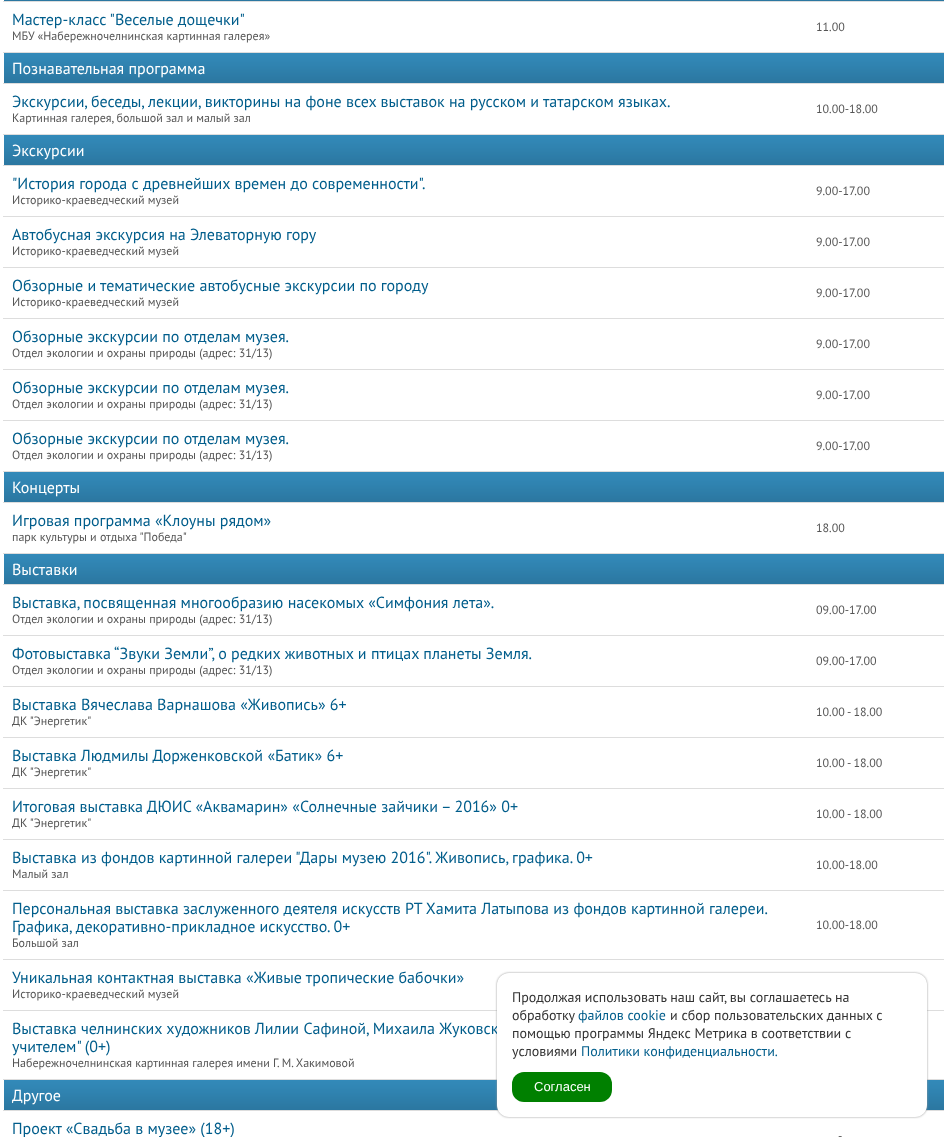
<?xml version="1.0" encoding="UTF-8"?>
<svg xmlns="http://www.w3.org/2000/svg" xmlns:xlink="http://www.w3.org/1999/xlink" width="947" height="1137">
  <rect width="100%" height="100%" fill="#ffffff" />
  <rect x="4" width="940" height="1" fill="#2b77a1" />
  <rect x="3" y="1" width="941" height="1" fill="#dddddd" />
  <rect x="3" y="52" width="941" height="1" fill="#dddddd" />
  <image x="4" y="53" width="940" height="30" xlink:href="image1.png" />
  <rect x="3" y="83" width="941" height="1" fill="#dddddd" />
  <rect x="3" y="134" width="941" height="1" fill="#dddddd" />
  <image x="4" y="135" width="940" height="30" xlink:href="image1.png" />
  <rect x="3" y="165" width="941" height="1" fill="#dddddd" />
  <rect x="3" y="216" width="941" height="1" fill="#dddddd" />
  <rect x="3" y="267" width="941" height="1" fill="#dddddd" />
  <rect x="3" y="318" width="941" height="1" fill="#dddddd" />
  <rect x="3" y="369" width="941" height="1" fill="#dddddd" />
  <rect x="3" y="420" width="941" height="1" fill="#dddddd" />
  <rect x="3" y="471" width="941" height="1" fill="#dddddd" />
  <image x="4" y="472" width="940" height="30" xlink:href="image1.png" />
  <rect x="3" y="502" width="941" height="1" fill="#dddddd" />
  <rect x="3" y="553" width="941" height="1" fill="#dddddd" />
  <image x="4" y="554" width="940" height="30" xlink:href="image1.png" />
  <rect x="3" y="584" width="941" height="1" fill="#dddddd" />
  <rect x="3" y="635" width="941" height="1" fill="#dddddd" />
  <rect x="3" y="686" width="941" height="1" fill="#dddddd" />
  <rect x="3" y="737" width="941" height="1" fill="#dddddd" />
  <rect x="3" y="788" width="941" height="1" fill="#dddddd" />
  <rect x="3" y="839" width="941" height="1" fill="#dddddd" />
  <rect x="3" y="890" width="941" height="1" fill="#dddddd" />
  <rect x="3" y="959" width="941" height="1" fill="#dddddd" />
  <rect x="927" y="1010" width="17" height="1" fill="#dddddd" />
  <rect x="3" y="1010" width="494" height="1" fill="#dddddd" />
  <rect x="3" y="1079" width="941" height="1" fill="#dddddd" />
  <image x="4" y="1080" width="940" height="30" xlink:href="image1.png" />
  <rect x="3" y="1110" width="496" height="1" fill="#dddddd" />
  <rect x="925" y="1110" width="19" height="1" fill="#dddddd" />
  <rect x="497" y="973" width="430" height="144" rx="12" fill="#989898" filter="blur(1px)" />
  <text x="12" y="25" style="font-family: PT Sans; font-size: 16px; fill: #005d8b">Мастер-класс "Веселые дощечки"</text>
  <text x="12" y="40" style="font-family: PT Sans; font-size: 12px; fill: #555555">МБУ «Набережночелнинская картинная галерея»</text>
  <text x="816" y="31" style="font-family: PT Sans; font-size: 12px; fill: #555555">11.00</text>
  <text x="12" y="74" style="font-family: PT Sans; font-size: 16px; fill: #ffffff">Познавательная программа</text>
  <text x="12" y="107" style="font-family: PT Sans; font-size: 16px; fill: #005d8b">Экскурсии, беседы, лекции, викторины на фоне всех выставок на русском и татарском языках.</text>
  <text x="12" y="122" style="font-family: PT Sans; font-size: 12px; fill: #555555">Картинная галерея, большой зал и малый зал</text>
  <text x="816" y="113" style="font-family: PT Sans; font-size: 12px; fill: #555555">10.00-18.00</text>
  <text x="12" y="156" style="font-family: PT Sans; font-size: 16px; fill: #ffffff">Экскурсии</text>
  <text x="12" y="189" style="font-family: PT Sans; font-size: 16px; fill: #005d8b">"История города с древнейших времен до современности".</text>
  <text x="12" y="204" style="font-family: PT Sans; font-size: 12px; fill: #555555">Историко-краеведческий музей</text>
  <text x="816" y="195" style="font-family: PT Sans; font-size: 12px; fill: #555555">9.00-17.00</text>
  <text x="12" y="240" style="font-family: PT Sans; font-size: 16px; fill: #005d8b">Автобусная экскурсия на Элеваторную гору</text>
  <text x="12" y="255" style="font-family: PT Sans; font-size: 12px; fill: #555555">Историко-краеведческий музей</text>
  <text x="816" y="246" style="font-family: PT Sans; font-size: 12px; fill: #555555">9.00-17.00</text>
  <text x="12" y="291" style="font-family: PT Sans; font-size: 16px; fill: #005d8b">Обзорные и тематические автобусные экскурсии по городу</text>
  <text x="12" y="306" style="font-family: PT Sans; font-size: 12px; fill: #555555">Историко-краеведческий музей</text>
  <text x="816" y="297" style="font-family: PT Sans; font-size: 12px; fill: #555555">9.00-17.00</text>
  <text x="12" y="342" style="font-family: PT Sans; font-size: 16px; fill: #005d8b">Обзорные экскурсии по отделам музея.</text>
  <text x="12" y="357" style="font-family: PT Sans; font-size: 12px; fill: #555555">Отдел экологии и охраны природы (адрес: 31/13)</text>
  <text x="816" y="348" style="font-family: PT Sans; font-size: 12px; fill: #555555">9.00-17.00</text>
  <text x="12" y="393" style="font-family: PT Sans; font-size: 16px; fill: #005d8b">Обзорные экскурсии по отделам музея.</text>
  <text x="12" y="408" style="font-family: PT Sans; font-size: 12px; fill: #555555">Отдел экологии и охраны природы (адрес: 31/13)</text>
  <text x="816" y="399" style="font-family: PT Sans; font-size: 12px; fill: #555555">9.00-17.00</text>
  <text x="12" y="444" style="font-family: PT Sans; font-size: 16px; fill: #005d8b">Обзорные экскурсии по отделам музея.</text>
  <text x="12" y="459" style="font-family: PT Sans; font-size: 12px; fill: #555555">Отдел экологии и охраны природы (адрес: 31/13)</text>
  <text x="816" y="450" style="font-family: PT Sans; font-size: 12px; fill: #555555">9.00-17.00</text>
  <text x="12" y="493" style="font-family: PT Sans; font-size: 16px; fill: #ffffff">Концерты</text>
  <text x="12" y="526" style="font-family: PT Sans; font-size: 16px; fill: #005d8b">Игровая программа «Клоуны рядом»</text>
  <text x="12" y="541" style="font-family: PT Sans; font-size: 12px; fill: #555555">парк культуры и отдыха "Победа"</text>
  <text x="816" y="532" style="font-family: PT Sans; font-size: 12px; fill: #555555">18.00</text>
  <text x="12" y="575" style="font-family: PT Sans; font-size: 16px; fill: #ffffff">Выставки</text>
  <text x="12" y="608" style="font-family: PT Sans; font-size: 16px; fill: #005d8b">Выставка, посвященная многообразию насекомых «Симфония лета».</text>
  <text x="12" y="623" style="font-family: PT Sans; font-size: 12px; fill: #555555">Отдел экологии и охраны природы (адрес: 31/13)</text>
  <text x="816" y="614" style="font-family: PT Sans; font-size: 12px; fill: #555555">09.00-17.00</text>
  <text x="12" y="659" style="font-family: PT Sans; font-size: 16px; fill: #005d8b">Фотовыставка “Звуки Земли”, о редких животных и птицах планеты Земля.</text>
  <text x="12" y="674" style="font-family: PT Sans; font-size: 12px; fill: #555555">Отдел экологии и охраны природы (адрес: 31/13)</text>
  <text x="816" y="665" style="font-family: PT Sans; font-size: 12px; fill: #555555">09.00-17.00</text>
  <text x="12" y="710" style="font-family: PT Sans; font-size: 16px; fill: #005d8b">Выставка Вячеслава Варнашова «Живопись» 6+</text>
  <text x="12" y="725" style="font-family: PT Sans; font-size: 12px; fill: #555555">ДК "Энергетик"</text>
  <text x="816" y="716" style="font-family: PT Sans; font-size: 12px; fill: #555555">10.00 - 18.00</text>
  <text x="12" y="761" style="font-family: PT Sans; font-size: 16px; fill: #005d8b">Выставка Людмилы Дорженковской «Батик» 6+</text>
  <text x="12" y="776" style="font-family: PT Sans; font-size: 12px; fill: #555555">ДК "Энергетик"</text>
  <text x="816" y="767" style="font-family: PT Sans; font-size: 12px; fill: #555555">10.00 - 18.00</text>
  <text x="12" y="812" style="font-family: PT Sans; font-size: 16px; fill: #005d8b">Итоговая выставка ДЮИС «Аквамарин» «Солнечные зайчики – 2016» 0+</text>
  <text x="12" y="827" style="font-family: PT Sans; font-size: 12px; fill: #555555">ДК "Энергетик"</text>
  <text x="816" y="818" style="font-family: PT Sans; font-size: 12px; fill: #555555">10.00 - 18.00</text>
  <text x="12" y="863" style="font-family: PT Sans; font-size: 16px; fill: #005d8b">Выставка из фондов картинной галереи "Дары музею 2016". Живопись, графика. 0+</text>
  <text x="12" y="878" style="font-family: PT Sans; font-size: 12px; fill: #555555">Малый зал</text>
  <text x="816" y="869" style="font-family: PT Sans; font-size: 12px; fill: #555555">10.00-18.00</text>
  <text x="12" y="914" style="font-family: PT Sans; font-size: 16px; fill: #005d8b">Персональная выставка заслуженного деятеля искусств РТ Хамита Латыпова из фондов картинной галереи.</text>
  <text x="12" y="932" style="font-family: PT Sans; font-size: 16px; fill: #005d8b">Графика, декоративно-прикладное искусство. 0+</text>
  <text x="12" y="947" style="font-family: PT Sans; font-size: 12px; fill: #555555">Большой зал</text>
  <text x="816" y="929" style="font-family: PT Sans; font-size: 12px; fill: #555555">10.00-18.00</text>
  <text x="12" y="983" style="font-family: PT Sans; font-size: 16px; fill: #005d8b">Уникальная контактная выставка «Живые тропические бабочки»</text>
  <text x="12" y="998" style="font-family: PT Sans; font-size: 12px; fill: #555555">Историко-краеведческий музей</text>
  <text x="12" y="1034" style="font-family: PT Sans; font-size: 16px; fill: #005d8b">Выставка челнинских художников Лилии Сафиной, Михаила Жуковск</text>
  <text x="12" y="1052" style="font-family: PT Sans; font-size: 16px; fill: #005d8b">учителем" (0+)</text>
  <text x="12" y="1067" style="font-family: PT Sans; font-size: 12px; fill: #555555">Набережночелнинская картинная галерея имени Г. М. Хакимовой</text>
  <text x="12" y="1101" style="font-family: PT Sans; font-size: 16px; fill: #ffffff">Другое</text>
  <text x="12" y="1134" style="font-family: PT Sans; font-size: 16px; fill: #005d8b">Проект «Свадьба в музее» (18+)</text>
  <text x="838" y="1140" style="font-family: PT Sans; font-size: 12px; fill: #555555">-</text>
  <rect x="497" y="973" width="430" height="144" rx="12" fill="#ffffff" />
  <text x="512" y="1002" style="font-family: PT Sans; font-size: 14px; fill: #333333">Продолжая использовать наш сайт, вы соглашаетесь на</text>
  <text x="512" y="1020" style="font-family: PT Sans; font-size: 14px; fill: #333333">обработку</text>
  <text x="578" y="1020" style="font-family: PT Sans; font-size: 14px; fill: #005d8b">файлов cookie</text>
  <text x="670" y="1020" style="font-family: PT Sans; font-size: 14px; fill: #333333">и сбор пользовательских данных с</text>
  <text x="512" y="1038" style="font-family: PT Sans; font-size: 14px; fill: #333333">помощью программы Яндекс Метрика в соответствии с</text>
  <text x="512" y="1056" style="font-family: PT Sans; font-size: 14px; fill: #333333">условиями</text>
  <text x="581" y="1056" style="font-family: PT Sans; font-size: 14px; fill: #005d8b">Политики конфиденциальности.</text>
  <rect x="512" y="1072" width="100" height="30" rx="12" fill="#008000" />
  <text x="534" y="1091" style="font-family: Liberation Sans; font-size: 13px; fill: #ffffff">Согласен</text>
</svg>
